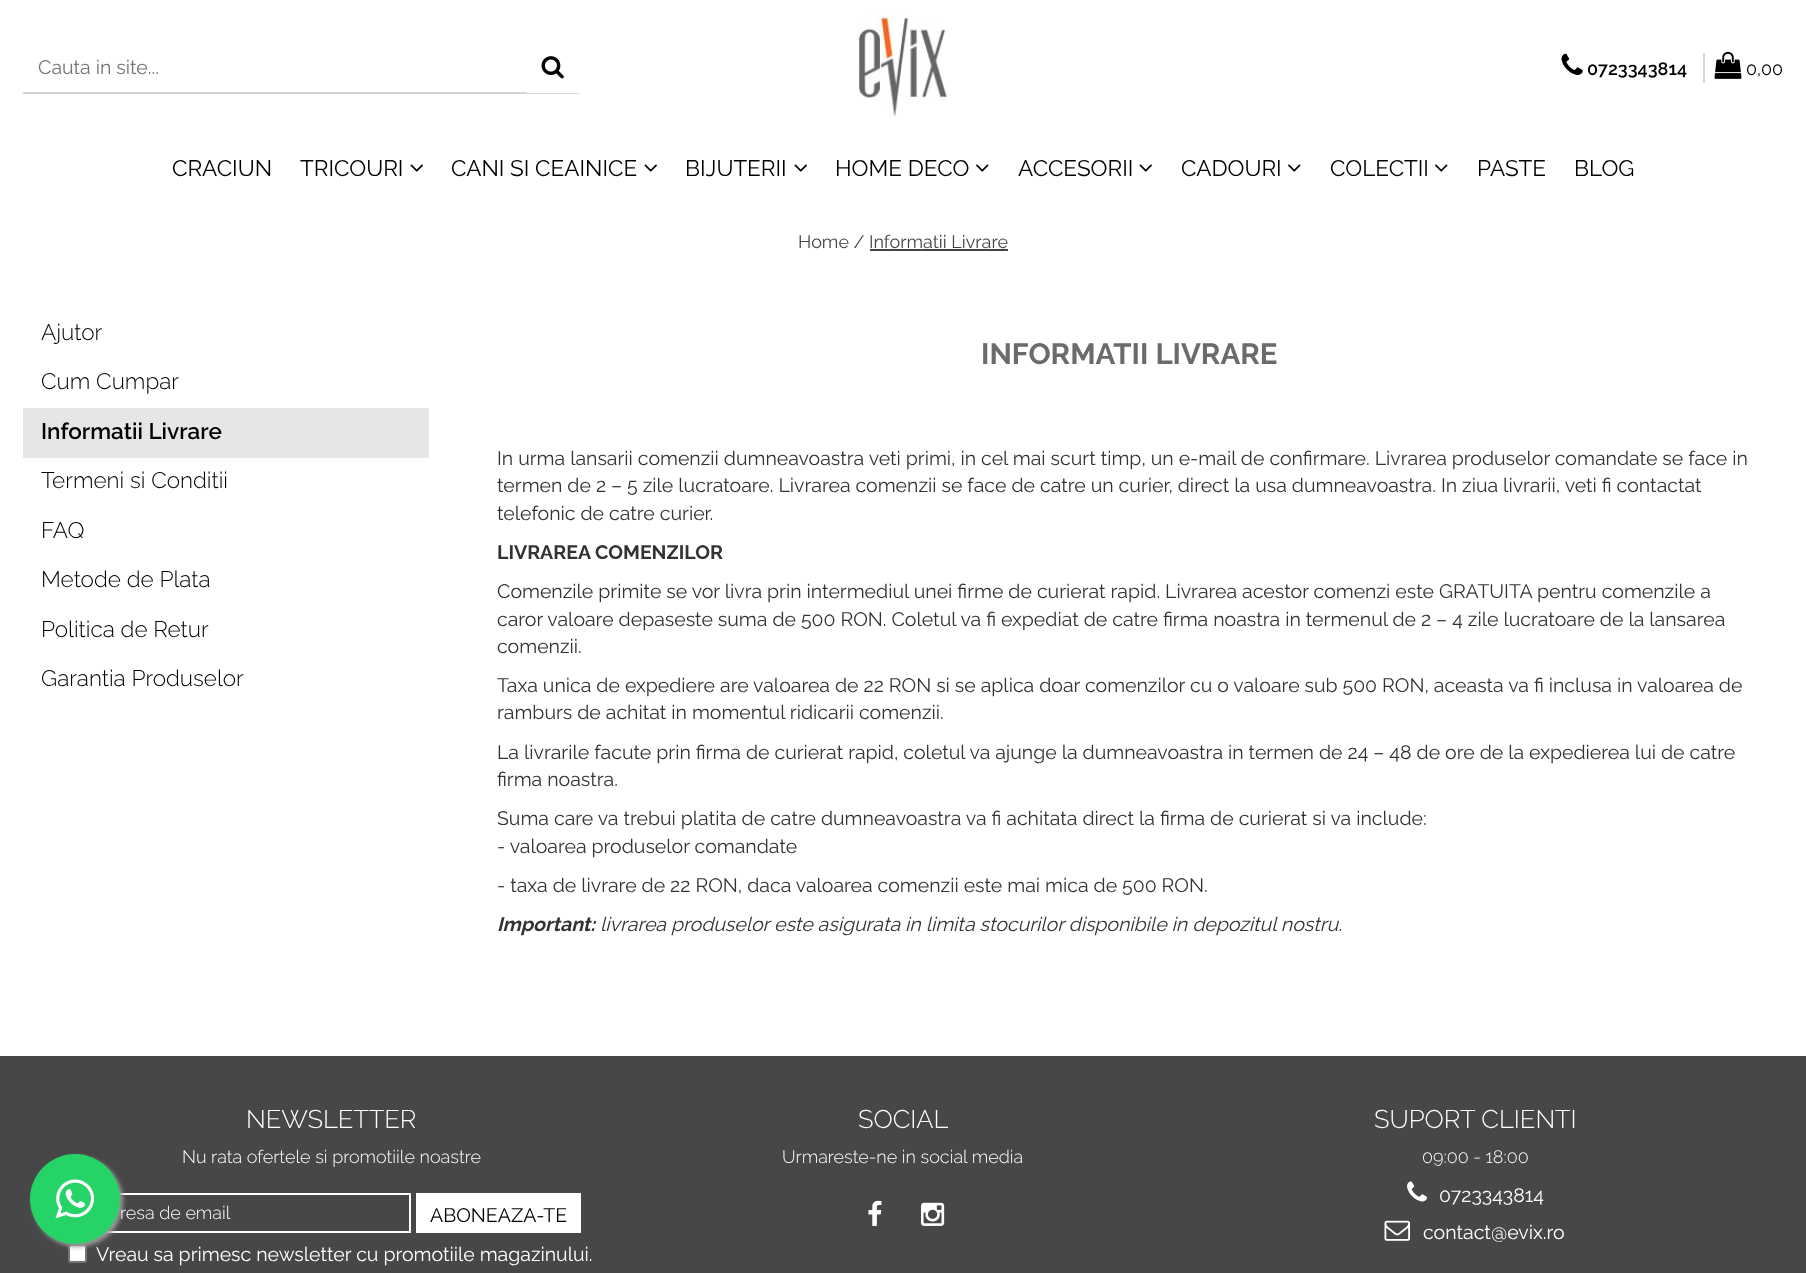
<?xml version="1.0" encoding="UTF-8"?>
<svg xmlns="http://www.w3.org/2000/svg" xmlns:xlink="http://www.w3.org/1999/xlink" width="1806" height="1273">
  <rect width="100%" height="100%" fill="#ffffff" />
  <rect x="23" y="92" width="556" height="2" fill="#d5d5d5" />
  <rect x="527" y="92" width="52" height="1" fill="#ffffff" />
  <image x="541" y="56" width="23" height="23" xlink:href="image1.png" />
  <image x="858" y="15" width="91" height="102" xlink:href="image2.png" />
  <image x="1561" y="53" width="22" height="22" xlink:href="image3.png" />
  <rect x="1703" y="53" width="2" height="30" fill="#d5d5d5" />
  <image x="1714" y="51" width="28" height="28" xlink:href="image4.png" />
  <image x="410" y="164" width="13" height="8" xlink:href="image5.png" />
  <image x="644" y="164" width="13" height="8" xlink:href="image5.png" />
  <image x="794" y="164" width="13" height="8" xlink:href="image5.png" />
  <image x="976" y="164" width="13" height="8" xlink:href="image6.png" />
  <image x="1139" y="164" width="13" height="8" xlink:href="image5.png" />
  <image x="1288" y="164" width="13" height="8" xlink:href="image6.png" />
  <image x="1435" y="164" width="13" height="8" xlink:href="image6.png" />
  <rect x="870" y="249" width="138" height="2" fill="#444444" />
  <rect x="23" y="408" width="406" height="50" fill="#e6e6e6" />
  <rect y="1056" width="1806" height="217" fill="#474747" />
  <rect x="82" y="1194" width="328" height="38" fill="none" stroke="#ffffff" stroke-width="2" />
  <rect x="416" y="1193" width="165" height="40" fill="#ffffff" />
  <rect x="69" y="1245" width="17" height="17" rx="2" fill="#ffffff" stroke="#767676" stroke-width="2" />
  <image x="868" y="1200" width="14" height="26" xlink:href="image7.png" />
  <image x="921" y="1202" width="24" height="24" xlink:href="image8.png" />
  <image x="1407" y="1181" width="20" height="21" xlink:href="image9.png" />
  <image x="1384" y="1220" width="26" height="21" xlink:href="image10.png" />
  <rect x="33" y="1157" width="90" height="90" rx="45" fill="#999999" filter="blur(2px)" />
  <circle cx="75" cy="1199" r="45" fill="#25d366" />
  <image x="55" y="1179" width="40" height="40" xlink:href="image11.png" />
  <text x="38" y="74" style="font-family: Raleway; font-size: 19.5px; fill: #757575">Cauta in site...</text>
  <text x="1587" y="75" style="font-family: Raleway; font-size: 18px; font-weight: 600; fill: #000000">0723343814</text>
  <text x="1746" y="75" style="font-family: Raleway; font-size: 18px; fill: #000000">0,00</text>
  <text x="172" y="176" style="font-family: Raleway; font-size: 22.5px; fill: #000000">CRACIUN</text>
  <text x="300" y="176" style="font-family: Raleway; font-size: 22.5px; fill: #000000">TRICOURI</text>
  <text x="451" y="176" style="font-family: Raleway; font-size: 22.5px; fill: #000000">CANI SI CEAINICE</text>
  <text x="685" y="176" style="font-family: Raleway; font-size: 22.5px; fill: #000000">BIJUTERII</text>
  <text x="835" y="176" style="font-family: Raleway; font-size: 22.5px; fill: #000000">HOME DECO</text>
  <text x="1018" y="176" style="font-family: Raleway; font-size: 22.5px; fill: #000000">ACCESORII</text>
  <text x="1181" y="176" style="font-family: Raleway; font-size: 22.5px; fill: #000000">CADOURI</text>
  <text x="1330" y="176" style="font-family: Raleway; font-size: 22.5px; fill: #000000">COLECTII</text>
  <text x="1477" y="176" style="font-family: Raleway; font-size: 22.5px; fill: #000000">PASTE</text>
  <text x="1574" y="176" style="font-family: Raleway; font-size: 22.5px; fill: #000000">BLOG</text>
  <text x="798" y="248" style="font-family: Raleway; font-size: 18px; fill: #444444">Home /</text>
  <text x="869" y="248" style="font-family: Raleway; font-size: 18px; fill: #444444">Informatii Livrare</text>
  <text x="41" y="340" style="font-family: Raleway; font-size: 22.5px; font-weight: 300; fill: #000000">Ajutor</text>
  <text x="41" y="389" style="font-family: Raleway; font-size: 22.5px; font-weight: 300; fill: #000000">Cum Cumpar</text>
  <text x="41" y="439" style="font-family: Raleway; font-size: 22.5px; font-weight: 600; fill: #000000">Informatii Livrare</text>
  <text x="41" y="488" style="font-family: Raleway; font-size: 22.5px; font-weight: 300; fill: #000000">Termeni si Conditii</text>
  <text x="41" y="538" style="font-family: Raleway; font-size: 22.5px; font-weight: 300; fill: #000000">FAQ</text>
  <text x="41" y="587" style="font-family: Raleway; font-size: 22.5px; font-weight: 300; fill: #000000">Metode de Plata</text>
  <text x="41" y="637" style="font-family: Raleway; font-size: 22.5px; font-weight: 300; fill: #000000">Politica de Retur</text>
  <text x="41" y="686" style="font-family: Raleway; font-size: 22.5px; font-weight: 300; fill: #000000">Garantia Produselor</text>
  <text x="981" y="364" style="font-family: Raleway; font-size: 29.4px; font-weight: bold; fill: #6b6b6b">INFORMATII LIVRARE</text>
  <text x="497" y="465" style="font-family: Raleway; font-size: 19.5px; fill: #333333">In urma lansarii comenzii dumneavoastra veti primi, in cel mai scurt timp, un e-mail de confirmare. Livrarea produselor comandate se face in</text>
  <text x="497" y="492" style="font-family: Raleway; font-size: 19.5px; fill: #333333">termen de 2 – 5 zile lucratoare. Livrarea comenzii se face de catre un curier, direct la usa dumneavoastra. In ziua livrarii, veti fi contactat</text>
  <text x="497" y="520" style="font-family: Raleway; font-size: 19.5px; fill: #333333">telefonic de catre curier.</text>
  <text x="497" y="559" style="font-family: Raleway; font-size: 19.5px; font-weight: bold; fill: #333333">LIVRAREA COMENZILOR</text>
  <text x="497" y="598" style="font-family: Raleway; font-size: 19.5px; fill: #333333">Comenzile primite se vor livra prin intermediul unei firme de curierat rapid. Livrarea acestor comenzi este GRATUITA pentru comenzile a</text>
  <text x="497" y="626" style="font-family: Raleway; font-size: 19.5px; fill: #333333">caror valoare depaseste suma de 500 RON. Coletul va fi expediat de catre firma noastra in termenul de 2 – 4 zile lucratoare de la lansarea</text>
  <text x="497" y="653" style="font-family: Raleway; font-size: 19.5px; fill: #333333">comenzii.</text>
  <text x="497" y="692" style="font-family: Raleway; font-size: 19.5px; fill: #333333">Taxa unica de expediere are valoarea de 22 RON si se aplica doar comenzilor cu o valoare sub 500 RON, aceasta va fi inclusa in valoarea de</text>
  <text x="497" y="719" style="font-family: Raleway; font-size: 19.5px; fill: #333333">ramburs de achitat in momentul ridicarii comenzii.</text>
  <text x="497" y="759" style="font-family: Raleway; font-size: 19.5px; fill: #333333">La livrarile facute prin firma de curierat rapid, coletul va ajunge la dumneavoastra in termen de 24 – 48 de ore de la expedierea lui de catre</text>
  <text x="497" y="786" style="font-family: Raleway; font-size: 19.5px; fill: #333333">firma noastra.</text>
  <text x="497" y="825" style="font-family: Raleway; font-size: 19.5px; fill: #333333">Suma care va trebui platita de catre dumneavoastra va fi achitata direct la firma de curierat si va include:</text>
  <text x="497" y="853" style="font-family: Raleway; font-size: 19.5px; fill: #333333">- valoarea produselor comandate</text>
  <text x="497" y="892" style="font-family: Raleway; font-size: 19.5px; fill: #333333">- taxa de livrare de 22 RON, daca valoarea comenzii este mai mica de 500 RON.</text>
  <text x="497" y="931" style="font-family: Raleway; font-size: 19.5px; font-weight: bold; font-style: italic; fill: #333333">Important:</text>
  <text x="600" y="931" style="font-family: Raleway; font-size: 19.5px; font-style: italic; fill: #333333">livrarea produselor este asigurata in limita stocurilor disponibile in depozitul nostru.</text>
  <text x="246" y="1128" style="font-family: Raleway; font-size: 25.5px; font-weight: 300; fill: #ffffff">NEWSLETTER</text>
  <text x="182" y="1163" style="font-family: Raleway; font-size: 18px; font-weight: 300; fill: #ffffff">Nu rata ofertele si promotiile noastre</text>
  <text x="120" y="1219" style="font-family: Raleway; font-size: 18px; font-weight: 300; fill: #ffffff">resa de email</text>
  <text x="430" y="1222" style="font-family: Raleway; font-size: 19.5px; fill: #000000">ABONEAZA-TE</text>
  <text x="96" y="1261" style="font-family: Raleway; font-size: 19.5px; fill: #ffffff">Vreau sa primesc newsletter cu promotiile magazinului.</text>
  <text x="858" y="1128" style="font-family: Raleway; font-size: 25.5px; font-weight: 300; fill: #ffffff">SOCIAL</text>
  <text x="782" y="1163" style="font-family: Raleway; font-size: 18px; font-weight: 300; fill: #ffffff">Urmareste-ne in social media</text>
  <text x="1374" y="1128" style="font-family: Raleway; font-size: 25.5px; font-weight: 300; fill: #ffffff">SUPORT CLIENTI</text>
  <text x="1422" y="1163" style="font-family: Raleway; font-size: 18px; font-weight: 300; fill: #ffffff">09:00 - 18:00</text>
  <text x="1439" y="1202" style="font-family: Raleway; font-size: 19.5px; fill: #ffffff">0723343814</text>
  <text x="1423" y="1239" style="font-family: Raleway; font-size: 19.5px; fill: #ffffff">contact@evix.ro</text>
</svg>
